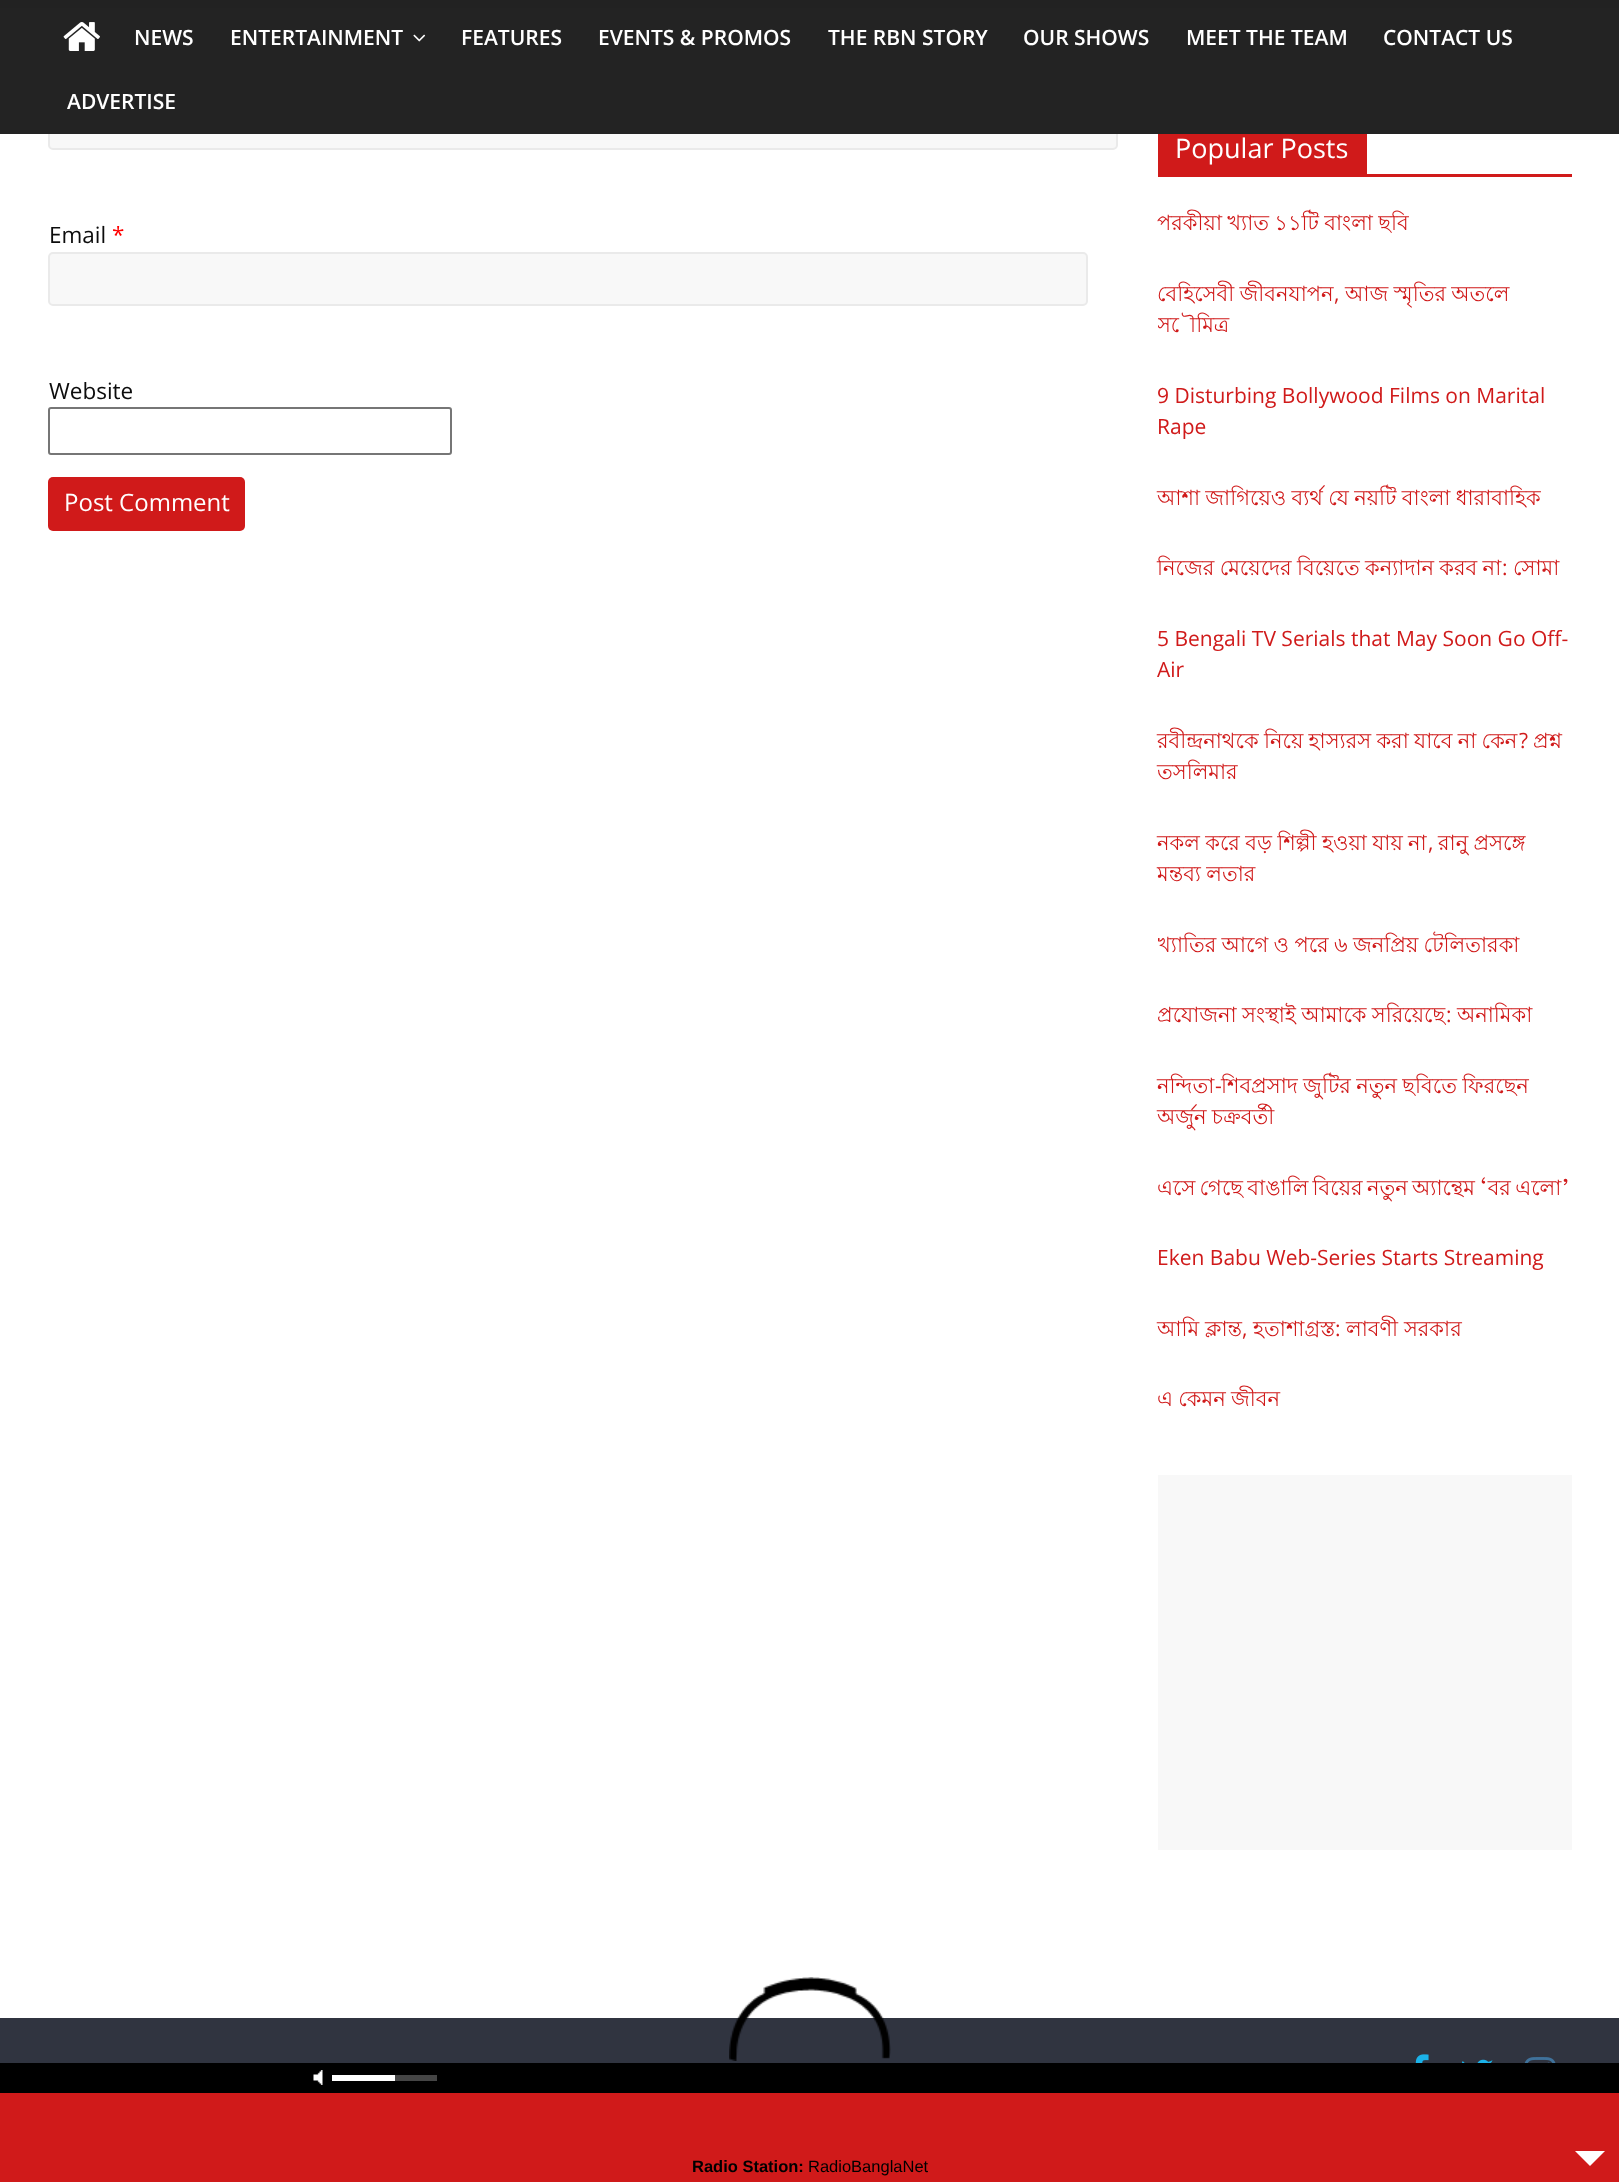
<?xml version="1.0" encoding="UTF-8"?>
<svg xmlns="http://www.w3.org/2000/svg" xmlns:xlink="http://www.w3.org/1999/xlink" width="1619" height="2182">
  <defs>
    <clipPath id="clip1"><rect x="1158" y="270" width="414" height="78" /></clipPath>
    <clipPath id="clip2"><rect x="1158" y="921" width="414" height="47" /></clipPath>
  </defs>
  <rect width="100%" height="100%" fill="#ffffff" />
  <rect width="1619" height="8" fill="#222222" />
  <rect x="49" y="82" width="1068" height="67" rx="4" fill="#f8f8f8" stroke="#eaeaea" stroke-width="2" />
  <rect y="8" width="1619" height="126" fill="#232323" />
  <image x="63" y="22" width="37" height="29" xlink:href="image1.png" />
  <image x="413" y="34" width="13" height="8" xlink:href="image2.png" />
  <rect x="49" y="253" width="1038" height="52" rx="4" fill="#f8f8f8" stroke="#eaeaea" stroke-width="2" />
  <rect x="49" y="408" width="402" height="46" rx="2" fill="none" stroke="#767676" stroke-width="2" />
  <rect x="48" y="477" width="197" height="54" rx="5" fill="#d01a1a" />
  <rect x="1158" y="174" width="414" height="3" fill="#d01a1a" />
  <rect x="1158" y="134" width="209" height="40" fill="#d01a1a" />
  <rect x="1158" y="1475" width="414" height="375" fill="#f8f8f8" />
  <rect y="2018" width="1619" height="45" fill="#303440" />
  <image x="1415" y="2054" width="14" height="9" xlink:href="image3.png" />
  <image x="1462" y="2059" width="31" height="4" xlink:href="image4.png" />
  <image x="1524" y="2057" width="32" height="6" xlink:href="image5.png" />
  <rect y="2093" width="1619" height="89" fill="#d01a1a" />
  <path d="M 1575 2151 h 30 l -15 15 z" fill="#ffffff" />
  <image x="729" y="1977" width="162" height="84" xlink:href="image6.png" />
  <rect y="2063" width="1619" height="30" fill="#000000" />
  <image x="313" y="2070" width="10" height="15" xlink:href="image7.png" />
  <rect x="395" y="2075" width="42" height="6" fill="#454545" />
  <rect x="332" y="2075" width="63" height="6" fill="#ffffff" />
  <text x="134" y="45" style="font-family: Open Sans; font-size: 21px; font-weight: 600; fill: #ffffff">NEWS</text>
  <text x="230" y="45" style="font-family: Open Sans; font-size: 21px; font-weight: 600; fill: #ffffff">ENTERTAINMENT</text>
  <text x="461" y="45" style="font-family: Open Sans; font-size: 21px; font-weight: 600; fill: #ffffff">FEATURES</text>
  <text x="598" y="45" style="font-family: Open Sans; font-size: 21px; font-weight: 600; fill: #ffffff">EVENTS &amp; PROMOS</text>
  <text x="828" y="45" style="font-family: Open Sans; font-size: 21px; font-weight: 600; fill: #ffffff">THE RBN STORY</text>
  <text x="1023" y="45" style="font-family: Open Sans; font-size: 21px; font-weight: 600; fill: #ffffff">OUR SHOWS</text>
  <text x="1186" y="45" style="font-family: Open Sans; font-size: 21px; font-weight: 600; fill: #ffffff">MEET THE TEAM</text>
  <text x="1383" y="45" style="font-family: Open Sans; font-size: 21px; font-weight: 600; fill: #ffffff">CONTACT US</text>
  <text x="67" y="109" style="font-family: Open Sans; font-size: 21px; font-weight: 600; fill: #ffffff">ADVERTISE</text>
  <text x="49" y="243" style="font-family: Open Sans; font-size: 22.5px; fill: #0c0c0c">Email</text>
  <text x="112" y="243" style="font-family: Open Sans; font-size: 22.5px; fill: #ff0000">*</text>
  <text x="49" y="399" style="font-family: Open Sans; font-size: 22.5px; fill: #0c0c0c">Website</text>
  <text x="64" y="511" style="font-family: Open Sans; font-size: 24px; fill: #ffffff">Post Comment</text>
  <text x="1175" y="158" style="font-family: Open Sans; font-size: 27px; fill: #ffffff">Popular Posts</text>
  <text x="1157" y="230" word-spacing="-0.5" style="font-family: Lohit Bengali; font-size: 21px; fill: #d01a1a">পরকীয়া খ্যাত ১১টি বাংলা ছবি</text>
  <text x="1157" y="301" word-spacing="-0.5" style="font-family: Lohit Bengali; font-size: 21px; fill: #d01a1a">বেহিসেবী জীবনযাপন</text>
  <text x="1334" y="301" style="font-family: Open Sans; font-size: 21px; fill: #d01a1a">,</text>
  <text x="1345" y="301" word-spacing="-0.5" style="font-family: Lohit Bengali; font-size: 21px; fill: #d01a1a">আজ স্মৃতির অতলে</text>
  <g clip-path="url(#clip1)">
    <text x="1157" y="332" style="font-family: Lohit Bengali; font-size: 21px; fill: #d01a1a">সৌমিত্র</text>
  </g>
  <text x="1157" y="403" style="font-family: Open Sans; font-size: 21px; fill: #d01a1a">9 Disturbing Bollywood Films on Marital</text>
  <text x="1157" y="434" style="font-family: Open Sans; font-size: 21px; fill: #d01a1a">Rape</text>
  <text x="1157" y="505" word-spacing="-0.5" style="font-family: Lohit Bengali; font-size: 21px; fill: #d01a1a">আশা জাগিয়েও ব্যর্থ যে নয়টি বাংলা ধারাবাহিক</text>
  <text x="1157" y="575" word-spacing="-0.5" style="font-family: Lohit Bengali; font-size: 21px; fill: #d01a1a">নিজের মেয়েদের বিয়েতে কন্যাদান করব না</text>
  <text x="1502" y="575" style="font-family: Open Sans; font-size: 21px; fill: #d01a1a">:</text>
  <text x="1513" y="575" style="font-family: Lohit Bengali; font-size: 21px; fill: #d01a1a">সোমা</text>
  <text x="1157" y="646" style="font-family: Open Sans; font-size: 21px; fill: #d01a1a">5 Bengali TV Serials that May Soon Go Off-</text>
  <text x="1157" y="677" style="font-family: Open Sans; font-size: 21px; fill: #d01a1a">Air</text>
  <text x="1157" y="748" word-spacing="-0.5" style="font-family: Lohit Bengali; font-size: 21px; fill: #d01a1a">রবীন্দ্রনাথকে নিয়ে হাস্যরস করা যাবে না কেন</text>
  <text x="1519" y="748" style="font-family: Open Sans; font-size: 21px; fill: #d01a1a">?</text>
  <text x="1533" y="748" style="font-family: Lohit Bengali; font-size: 21px; fill: #d01a1a">প্রশ্ন</text>
  <text x="1157" y="779" style="font-family: Lohit Bengali; font-size: 21px; fill: #d01a1a">তসলিমার</text>
  <text x="1157" y="850" word-spacing="-0.5" style="font-family: Lohit Bengali; font-size: 21px; fill: #d01a1a">নকল করে বড় শিল্পী হওয়া যায় না</text>
  <text x="1428" y="850" style="font-family: Open Sans; font-size: 21px; fill: #d01a1a">,</text>
  <text x="1438" y="850" word-spacing="-0.5" style="font-family: Lohit Bengali; font-size: 21px; fill: #d01a1a">রানু প্রসঙ্গে</text>
  <text x="1157" y="881" word-spacing="-0.5" style="font-family: Lohit Bengali; font-size: 21px; fill: #d01a1a">মন্তব্য লতার</text>
  <g clip-path="url(#clip2)">
    <text x="1157" y="952" word-spacing="-0.5" style="font-family: Lohit Bengali; font-size: 21px; fill: #d01a1a">খ্যাতির আগে ও পরে ৬ জনপ্রিয় টেলিতারকা</text>
  </g>
  <text x="1157" y="1022" word-spacing="-0.5" style="font-family: Lohit Bengali; font-size: 21px; fill: #d01a1a">প্রযোজনা সংস্থাই আমাকে সরিয়েছে</text>
  <text x="1446" y="1022" style="font-family: Open Sans; font-size: 21px; fill: #d01a1a">:</text>
  <text x="1457" y="1022" style="font-family: Lohit Bengali; font-size: 21px; fill: #d01a1a">অনামিকা</text>
  <text x="1157" y="1093" style="font-family: Lohit Bengali; font-size: 21px; fill: #d01a1a">নন্দিতা</text>
  <text x="1215" y="1093" style="font-family: Open Sans; font-size: 21px; fill: #d01a1a">-</text>
  <text x="1221" y="1093" word-spacing="-0.5" style="font-family: Lohit Bengali; font-size: 21px; fill: #d01a1a">শিবপ্রসাদ জুটির নতুন ছবিতে ফিরছেন</text>
  <text x="1157" y="1124" word-spacing="-0.5" style="font-family: Lohit Bengali; font-size: 21px; fill: #d01a1a">অর্জুন চক্রবর্তী</text>
  <text x="1157" y="1195" word-spacing="-1.5" style="font-family: Lohit Bengali; font-size: 21px; fill: #d01a1a">এসে গেছে বাঙালি বিয়ের নতুন অ্যান্থেম ‘বর এলো’</text>
  <text x="1157" y="1265" style="font-family: Open Sans; font-size: 21px; fill: #d01a1a">Eken Babu Web-Series Starts Streaming</text>
  <text x="1157" y="1336" style="font-family: Lohit Bengali; font-size: 21px; fill: #d01a1a">আমি ক্লান্ত</text>
  <text x="1242" y="1336" style="font-family: Open Sans; font-size: 21px; fill: #d01a1a">,</text>
  <text x="1253" y="1336" style="font-family: Lohit Bengali; font-size: 21px; fill: #d01a1a">হতাশাগ্রস্ত</text>
  <text x="1335" y="1336" style="font-family: Open Sans; font-size: 21px; fill: #d01a1a">:</text>
  <text x="1346" y="1336" style="font-family: Lohit Bengali; font-size: 21px; fill: #d01a1a">লাবণী সরকার</text>
  <text x="1157" y="1406" word-spacing="-0.5" style="font-family: Lohit Bengali; font-size: 21px; fill: #d01a1a">এ কেমন জীবন</text>
  <text x="692" y="2172" style="font-family: Liberation Sans; font-size: 16.5px; font-weight: bold; fill: #000000">Radio Station:</text>
  <text x="808" y="2172" style="font-family: Liberation Sans; font-size: 16.5px; fill: #000000">RadioBanglaNet</text>
</svg>
